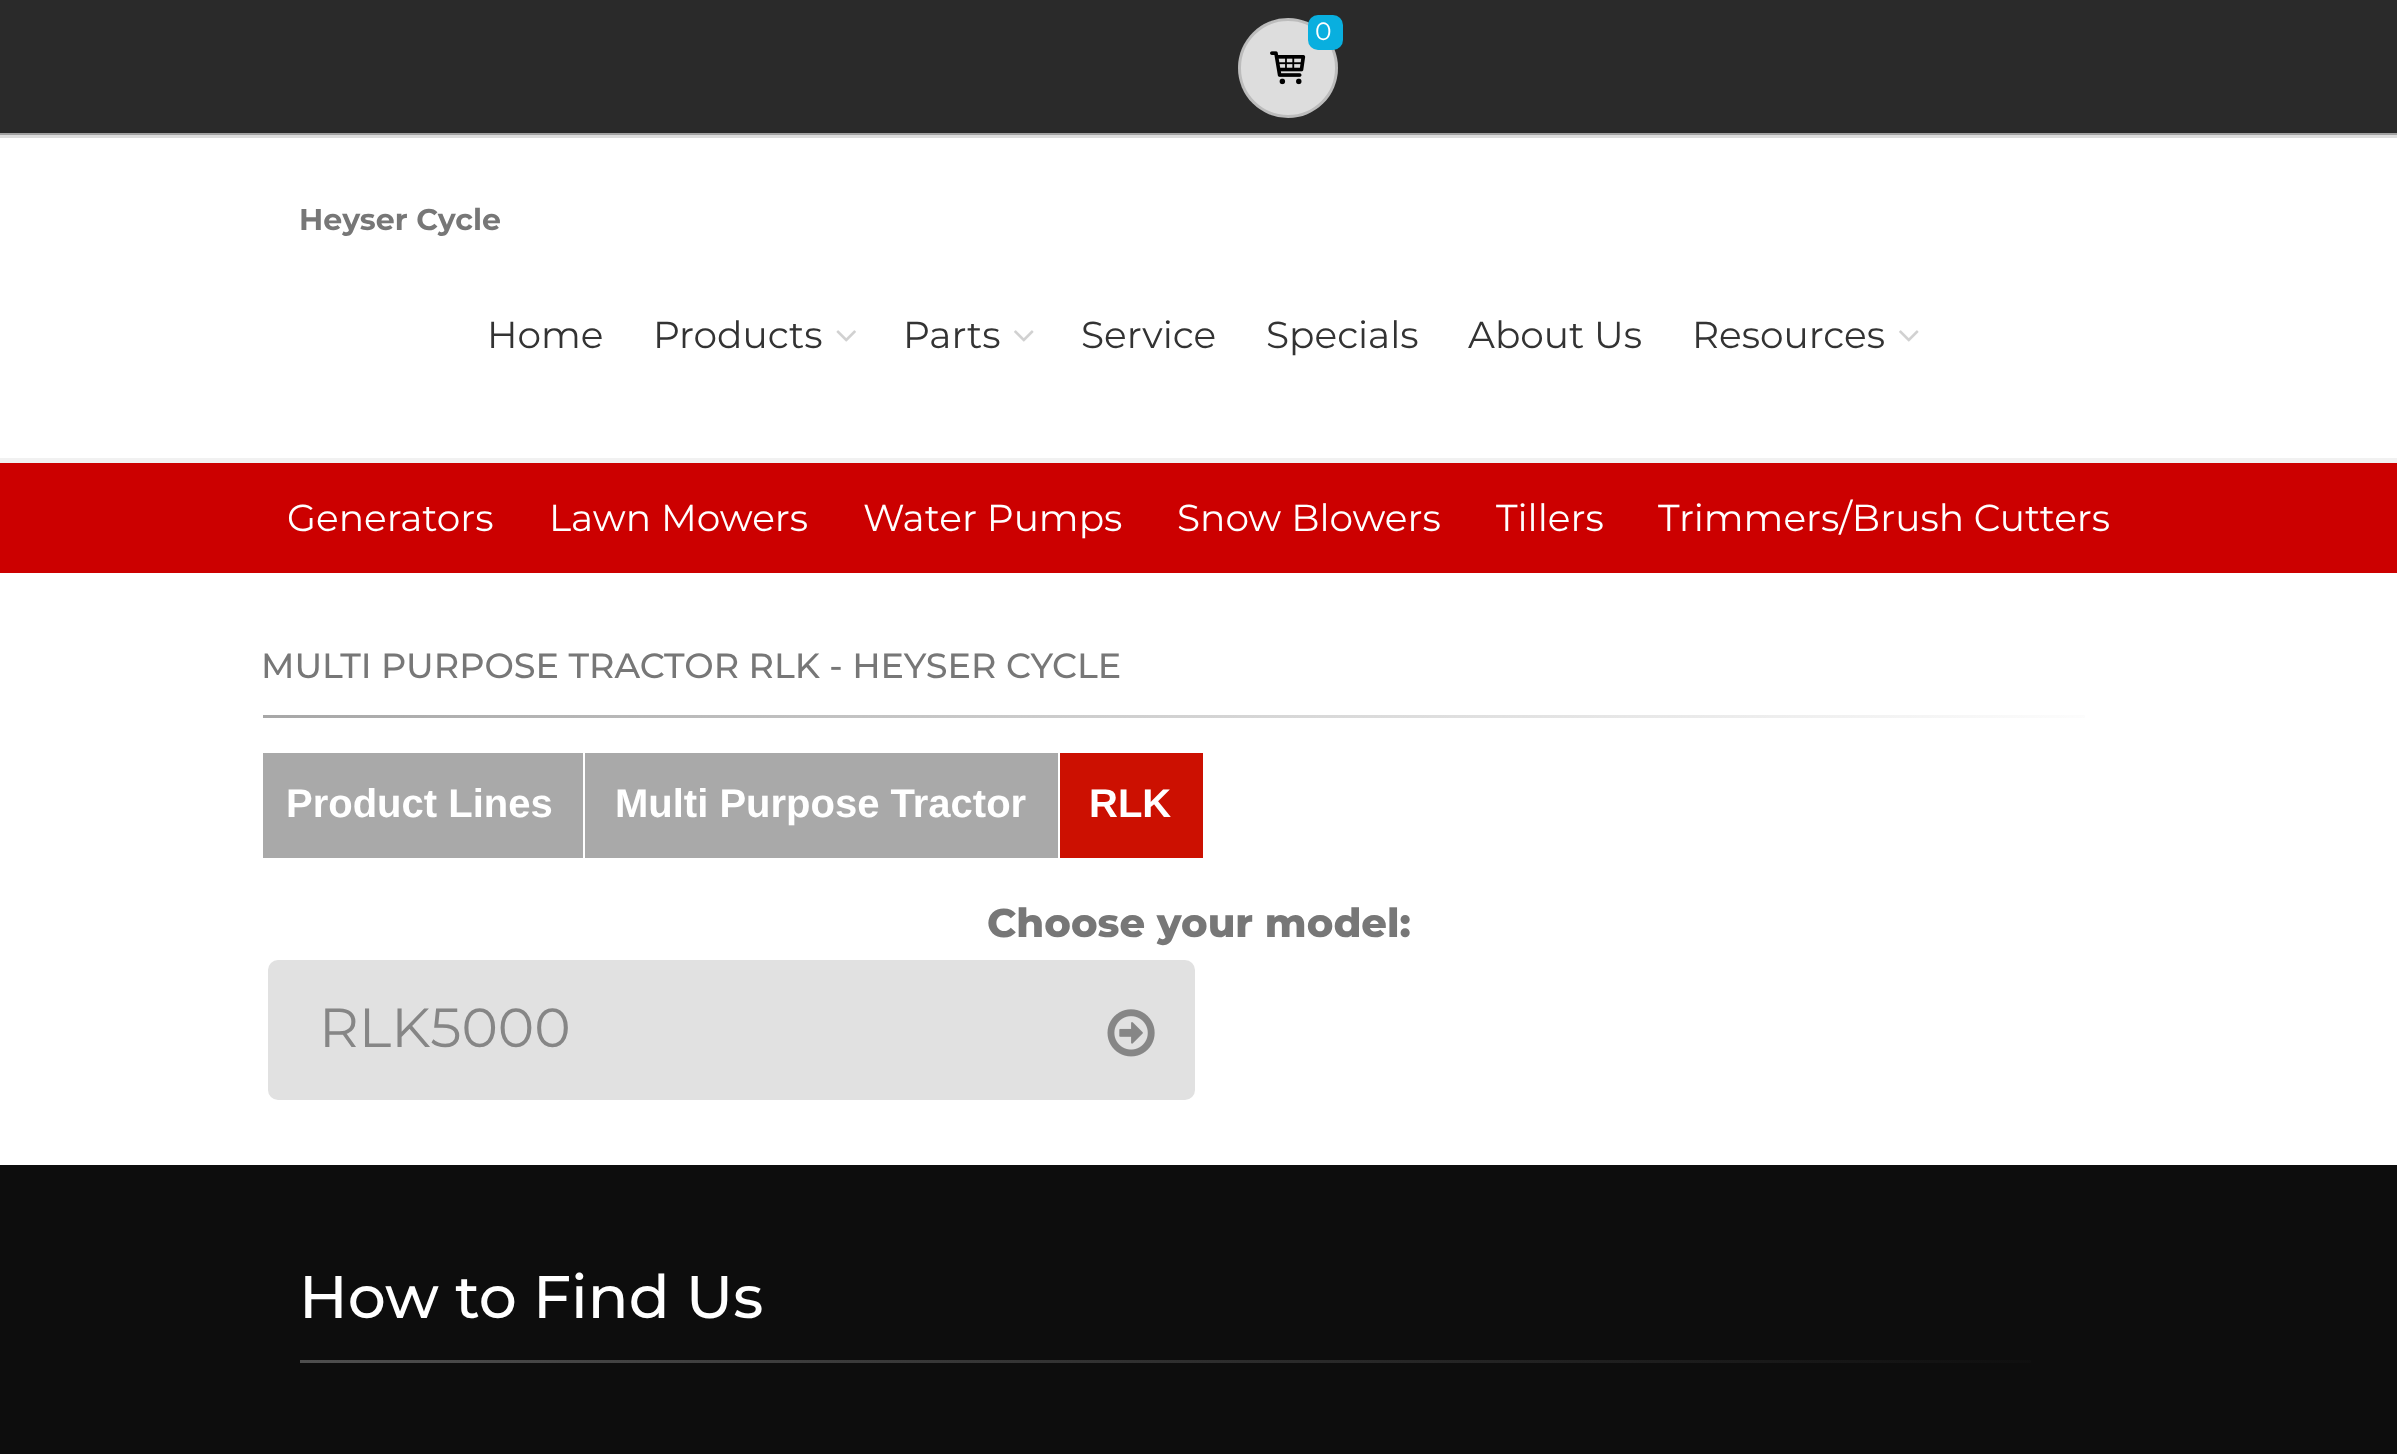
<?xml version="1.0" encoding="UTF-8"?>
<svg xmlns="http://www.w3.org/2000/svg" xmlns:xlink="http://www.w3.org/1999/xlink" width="2397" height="1454">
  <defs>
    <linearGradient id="g1" gradientUnits="userSpaceOnUse" x1="263" y1="716" x2="2138" y2="716"><stop offset="0" stop-color="#a7a7a7" /><stop offset="1" stop-color="#ffffff" /></linearGradient>
    <linearGradient id="g2" gradientUnits="userSpaceOnUse" x1="300" y1="1361" x2="2100" y2="1361"><stop offset="0" stop-color="#4e4e4e" /><stop offset="1" stop-color="#0d0d0d" /></linearGradient>
  </defs>
  <rect width="100%" height="100%" fill="#ffffff" />
  <rect width="2397" height="133" fill="#2a2a2a" />
  <rect y="133" width="2397" height="2" fill="#a1a1a1" />
  <circle cx="1288" cy="68" r="50" fill="#dddddd" />
  <circle cx="1288" cy="68" r="48.5" fill="none" stroke="#000000" stroke-opacity="0.15" stroke-width="3" />
  <rect x="1308" y="15" width="35" height="35" rx="10" fill="#09afdf" />
  <image x="1270" y="51" width="36" height="34" xlink:href="image1.png" />
  <rect y="135" width="2397" height="3" fill="#dddddd" />
  <rect y="458" width="2397" height="5" fill="#f1f1f1" />
  <image x="836" y="330" width="20" height="12" xlink:href="image2.png" />
  <image x="1014" y="330" width="20" height="12" xlink:href="image3.png" />
  <image x="1899" y="330" width="20" height="12" xlink:href="image3.png" />
  <rect y="463" width="2397" height="110" fill="#cc0000" />
  <rect x="263" y="715" width="1822" height="3" fill="url(#g1)" />
  <rect x="263" y="753" width="320" height="105" fill="#a9a9a9" />
  <rect x="585" y="753" width="473" height="105" fill="#a9a9a9" />
  <rect x="1060" y="753" width="143" height="105" fill="#cc1001" />
  <rect x="268" y="960" width="927" height="140" rx="10" fill="#e1e1e1" />
  <image x="1107" y="1009" width="48" height="48" xlink:href="image4.png" />
  <rect y="1165" width="2397" height="289" fill="#0d0d0d" />
  <rect x="300" y="1360" width="1731" height="3" fill="url(#g2)" />
  <text x="1315" y="40" style="font-family: Montserrat; font-size: 25px; fill: #ffffff">0</text>
  <text x="299" y="230" style="font-family: Montserrat; font-size: 30px; font-weight: bold; fill: #777777">Heyser Cycle</text>
  <text x="487" y="348" style="font-family: Montserrat; font-size: 37.5px; fill: #333333">Home</text>
  <text x="653" y="348" style="font-family: Montserrat; font-size: 37.5px; fill: #333333">Products</text>
  <text x="903" y="348" style="font-family: Montserrat; font-size: 37.5px; fill: #333333">Parts</text>
  <text x="1081" y="348" style="font-family: Montserrat; font-size: 37.5px; fill: #333333">Service</text>
  <text x="1266" y="348" style="font-family: Montserrat; font-size: 37.5px; fill: #333333">Specials</text>
  <text x="1468" y="348" style="font-family: Montserrat; font-size: 37.5px; fill: #333333">About Us</text>
  <text x="1692" y="348" style="font-family: Montserrat; font-size: 37.5px; fill: #333333">Resources</text>
  <text x="287" y="531" style="font-family: Montserrat; font-size: 37.5px; fill: #ffffff">Generators</text>
  <text x="549" y="531" style="font-family: Montserrat; font-size: 37.5px; fill: #ffffff">Lawn Mowers</text>
  <text x="863" y="531" style="font-family: Montserrat; font-size: 37.5px; fill: #ffffff">Water Pumps</text>
  <text x="1177" y="531" style="font-family: Montserrat; font-size: 37.5px; fill: #ffffff">Snow Blowers</text>
  <text x="1496" y="531" style="font-family: Montserrat; font-size: 37.5px; fill: #ffffff">Tillers</text>
  <text x="1658" y="531" style="font-family: Montserrat; font-size: 37.5px; fill: #ffffff">Trimmers/Brush Cutters</text>
  <text x="261" y="678" style="font-family: Montserrat; font-size: 35px; font-weight: 500; fill: #777777">MULTI PURPOSE TRACTOR RLK - HEYSER CYCLE</text>
  <text x="286" y="817" style="font-family: Liberation Sans; font-size: 40px; font-weight: bold; fill: #ffffff">Product Lines</text>
  <text x="615" y="817" style="font-family: Liberation Sans; font-size: 40px; font-weight: bold; fill: #ffffff">Multi Purpose Tractor</text>
  <text x="1089" y="817" style="font-family: Liberation Sans; font-size: 40px; font-weight: bold; fill: #ffffff">RLK</text>
  <text x="987" y="937" style="font-family: Montserrat; font-size: 40px; font-weight: 800; fill: #777777">Choose your model:</text>
  <text x="319" y="1047" style="font-family: Montserrat; font-size: 55px; fill: #868686">RLK5000</text>
  <text x="299" y="1318" style="font-family: Montserrat; font-size: 60px; font-weight: 500; fill: #ffffff">How to Find Us</text>
</svg>
